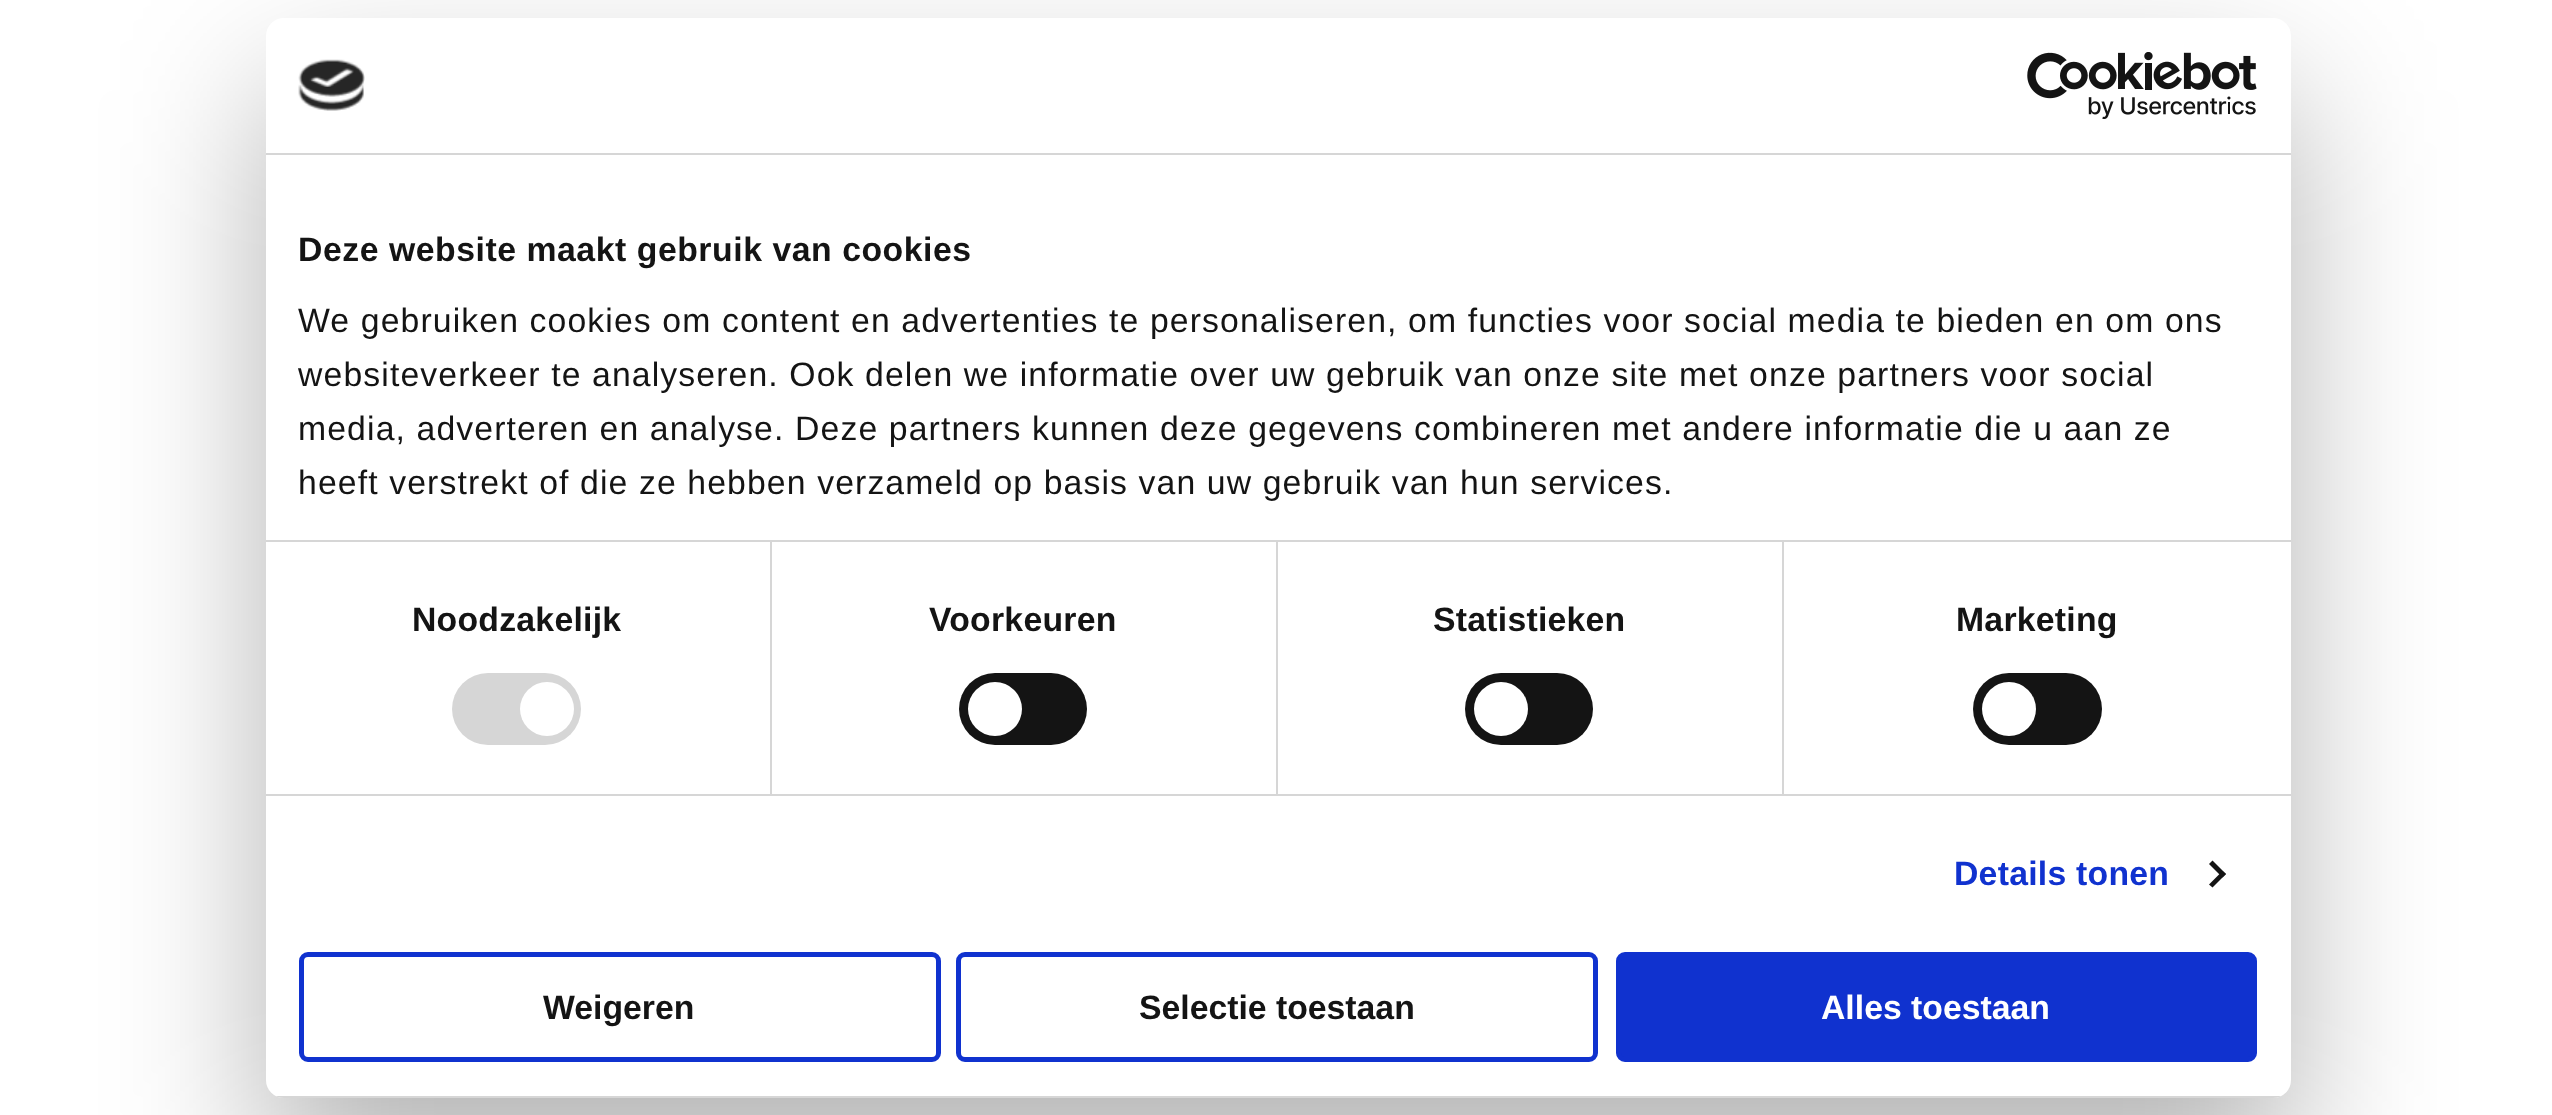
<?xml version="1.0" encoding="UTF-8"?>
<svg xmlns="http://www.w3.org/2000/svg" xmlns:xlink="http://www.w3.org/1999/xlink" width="2552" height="1115">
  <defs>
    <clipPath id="clip1"><rect x="266" y="18" width="2025" height="1080" rx="18" /></clipPath>
  </defs>
  <rect width="100%" height="100%" fill="#ffffff" />
  <rect x="266" y="90" width="2025" height="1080" rx="18" fill="#000000" fill-opacity="0.3" filter="blur(76.5px)" />
  <rect x="266" y="18" width="2025" height="1080" rx="18" fill="#ffffff" />
  <rect x="266" y="153" width="2025" height="2" fill="#d6d6d6" />
  <image x="298" y="59" width="67" height="52" xlink:href="image1.png" />
  <image x="2027" y="52" width="230" height="67" xlink:href="image2.png" />
  <rect x="266" y="540" width="2025" height="2" fill="#d6d6d6" />
  <rect x="266" y="794" width="2025" height="2" fill="#d6d6d6" />
  <rect x="770" y="542" width="2" height="252" fill="#d6d6d6" />
  <rect x="452" y="673" width="129" height="72" rx="36" fill="#d6d6d6" />
  <circle cx="547" cy="709" r="27" fill="#ffffff" />
  <rect x="1276" y="542" width="2" height="252" fill="#d6d6d6" />
  <rect x="959" y="673" width="128" height="72" rx="36" fill="#141414" />
  <circle cx="995" cy="709" r="27" fill="#ffffff" />
  <rect x="1782" y="542" width="2" height="252" fill="#d6d6d6" />
  <rect x="1465" y="673" width="128" height="72" rx="36" fill="#141414" />
  <circle cx="1501" cy="709" r="27" fill="#ffffff" />
  <rect x="1973" y="673" width="129" height="72" rx="36" fill="#141414" />
  <circle cx="2009" cy="709" r="27" fill="#ffffff" />
  <path d="M 2212.5 860.5 l 13.5 13.5 l -3.5 3.5 l -13.5 -13.5 z" fill="#141414" />
  <path d="M 2222.5 871 l 3.5 3 l -13.5 13.5 l -3.5 -3 z" fill="#141414" />
  <g clip-path="url(#clip1)">
    <rect x="276" y="1096" width="2005" height="2" fill="#d6d6d6" />
  </g>
  <rect x="301.5" y="954.5" width="637" height="105" rx="6.5" fill="none" stroke="#1032cf" stroke-width="5" />
  <rect x="958.5" y="954.5" width="637" height="105" rx="6.5" fill="none" stroke="#1032cf" stroke-width="5" />
  <rect x="1618.5" y="954.5" width="636" height="105" rx="6.5" fill="#1032cf" stroke="#1032cf" stroke-width="5" />
  <text x="298" y="261" style="font-family: Liberation Sans; font-size: 33.75px; font-weight: bold; letter-spacing: 0.55px; fill: #141414">Deze website maakt gebruik van cookies</text>
  <text x="298" y="332" style="font-family: Liberation Sans; font-size: 33.75px; letter-spacing: 1.12px; fill: #141414">We gebruiken cookies om content en advertenties te personaliseren, om functies voor social media te bieden en om ons</text>
  <text x="298" y="386" style="font-family: Liberation Sans; font-size: 33.75px; letter-spacing: 1.12px; fill: #141414">websiteverkeer te analyseren. Ook delen we informatie over uw gebruik van onze site met onze partners voor social</text>
  <text x="298" y="440" style="font-family: Liberation Sans; font-size: 33.75px; letter-spacing: 1.12px; fill: #141414">media, adverteren en analyse. Deze partners kunnen deze gegevens combineren met andere informatie die u aan ze</text>
  <text x="298" y="494" style="font-family: Liberation Sans; font-size: 33.75px; letter-spacing: 1.12px; fill: #141414">heeft verstrekt of die ze hebben verzameld op basis van uw gebruik van hun services.</text>
  <text x="412" y="631" style="font-family: Liberation Sans; font-size: 33.75px; font-weight: bold; letter-spacing: 0.25px; fill: #141414">Noodzakelijk</text>
  <text x="929" y="631" style="font-family: Liberation Sans; font-size: 33.75px; font-weight: bold; letter-spacing: 0.25px; fill: #141414">Voorkeuren</text>
  <text x="1433" y="631" style="font-family: Liberation Sans; font-size: 33.75px; font-weight: bold; letter-spacing: 0.25px; fill: #141414">Statistieken</text>
  <text x="1956" y="631" style="font-family: Liberation Sans; font-size: 33.75px; font-weight: bold; letter-spacing: 0.25px; fill: #141414">Marketing</text>
  <text x="1954" y="885" style="font-family: Liberation Sans; font-size: 33.75px; font-weight: bold; letter-spacing: 0.25px; fill: #1032cf">Details tonen</text>
  <text x="543" y="1019" style="font-family: Liberation Sans; font-size: 33.75px; font-weight: bold; fill: #141414">Weigeren</text>
  <text x="1139" y="1019" style="font-family: Liberation Sans; font-size: 33.75px; font-weight: bold; fill: #141414">Selectie toestaan</text>
  <text x="1821" y="1019" style="font-family: Liberation Sans; font-size: 33.75px; font-weight: bold; fill: #ffffff">Alles toestaan</text>
</svg>
